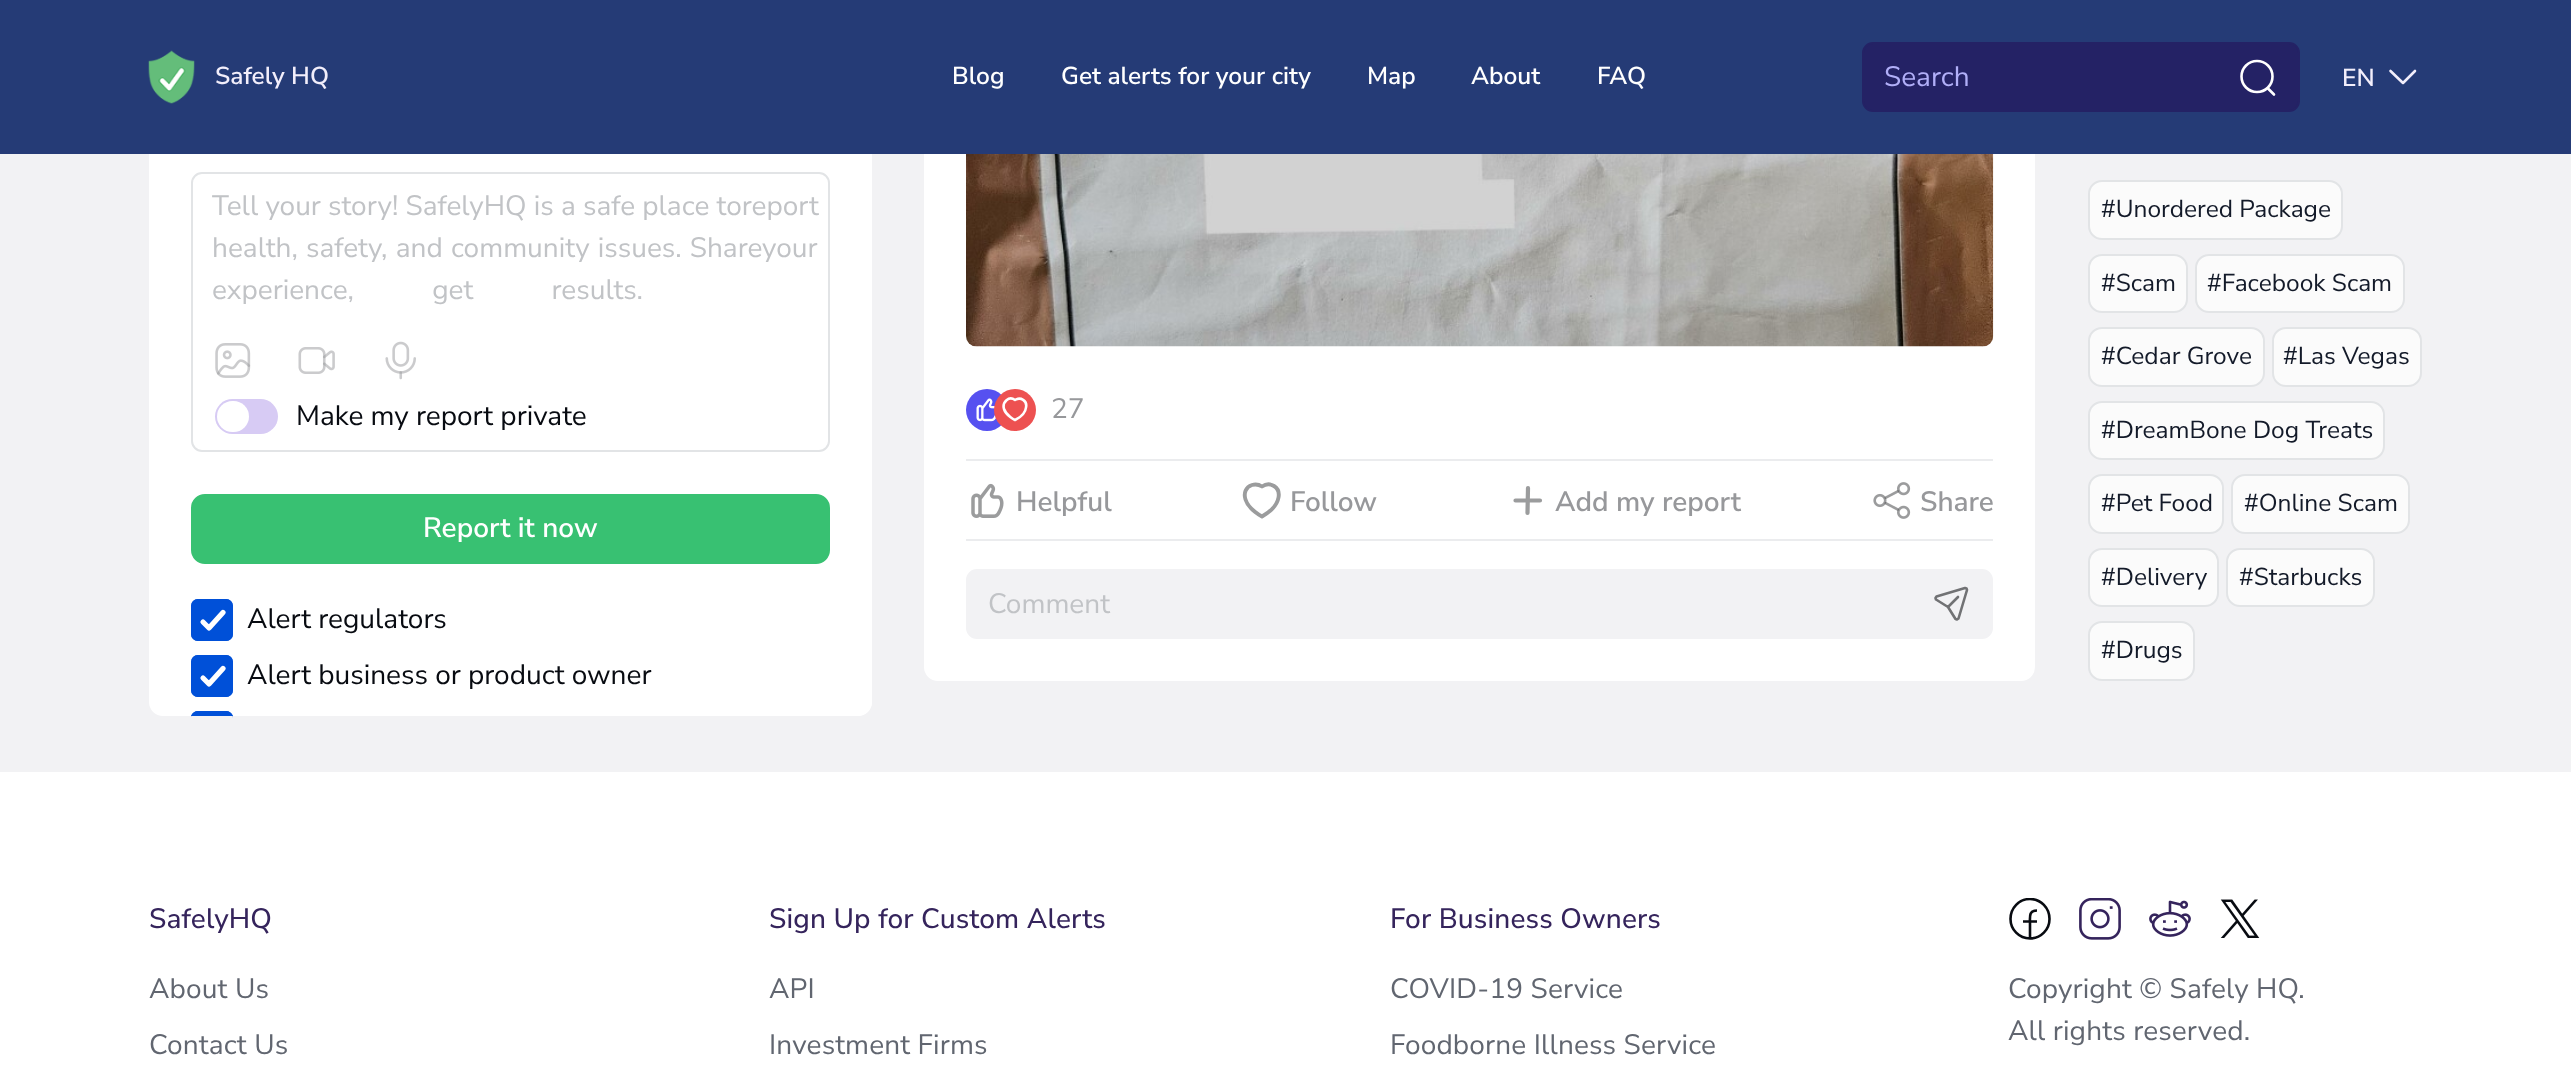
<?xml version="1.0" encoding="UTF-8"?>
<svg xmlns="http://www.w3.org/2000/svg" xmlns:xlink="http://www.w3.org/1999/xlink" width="2571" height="1069">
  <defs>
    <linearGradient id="g1" gradientUnits="userSpaceOnUse" x1="830" y1="662" x2="872" y2="662"><stop offset="0" stop-color="#ffffff" stop-opacity="0" /><stop offset="0.9" stop-color="#ffffff" /></linearGradient>
    <clipPath id="clip1"><rect x="2009" y="898" width="42" height="42" /></clipPath>
  </defs>
  <rect width="100%" height="100%" fill="#f2f2f4" />
  <rect x="149" y="-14" width="723" height="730" rx="14" fill="#ffffff" />
  <rect x="924" y="-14" width="1111" height="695" rx="14" fill="#ffffff" />
  <rect width="2571" height="154" fill="#253b76" />
  <image x="148" y="50" width="47" height="54" xlink:href="image1.png" />
  <rect x="1863" y="43" width="436" height="68" rx="10" fill="#242265" stroke="#242265" stroke-width="2" />
  <circle cx="2257" cy="76.5" r="15.5" fill="none" stroke="#ffffff" stroke-width="2.6" />
  <path d="M 2268 88.5 l 6 6" fill="none" stroke="#ffffff" stroke-width="2.6" stroke-linecap="round" stroke-linejoin="round" />
  <path d="M 2415 71 l -12 12 l -12.5 -12" fill="none" stroke="#f2eefb" stroke-width="2.6" stroke-linecap="round" stroke-linejoin="round" />
  <rect x="192" y="173" width="637" height="278" rx="10" fill="none" stroke="#e2e4e6" stroke-width="2" />
  <image x="215" y="343" width="36" height="35" xlink:href="image2.png" />
  <image x="298" y="347" width="37" height="27" xlink:href="image3.png" />
  <image x="385" y="341" width="31" height="39" xlink:href="image4.png" />
  <rect x="215" y="399" width="63" height="35" rx="17.5" fill="#d7cbf4" />
  <rect x="217" y="401" width="32" height="31" rx="15.5" fill="#ffffff" />
  <rect x="192" y="495" width="637" height="68" rx="13" fill="#38c172" stroke="#38c172" stroke-width="2" />
  <rect x="191" y="599" width="42" height="42" rx="7" fill="#0050d8" />
  <path d="M 203 622 l 6 6 l 14 -15.5" fill="none" stroke="#ffffff" stroke-width="5.2" stroke-linecap="round" stroke-linejoin="round" />
  <rect x="192" y="600" width="40" height="40" rx="6" fill="none" stroke="#0050d8" stroke-width="2" />
  <rect x="191" y="655" width="42" height="42" rx="7" fill="#0050d8" />
  <path d="M 203 678 l 6 6 l 14 -15.5" fill="none" stroke="#ffffff" stroke-width="5.2" stroke-linecap="round" stroke-linejoin="round" />
  <rect x="192" y="656" width="40" height="40" rx="6" fill="none" stroke="#0050d8" stroke-width="2" />
  <path d="M 198 711 h 28 c 4 0 7 3 7 7 v -2 h -42 v 2 c 0 -4 3 -7 7 -7 z" fill="#0050d8" />
  <path d="M 198 711 c -3 0 -6 2 -7 5 h 2 c 1 -2 3 -3 5 -3 h 28 c 2 0 4 1 5 3 h 2 c -1 -3 -4 -5 -7 -5 z" fill="#0050d8" />
  <path d="M 830 599 h 42 v 103 c 0 7.5 -6.5 14 -14 14 h -28 z" fill="url(#g1)" />
  <image x="966" y="154" width="1028" height="193" xlink:href="image5.png" />
  <circle cx="987" cy="410" r="21" fill="#5651f0" />
  <image x="976" y="398" width="20" height="24" xlink:href="image6.png" />
  <circle cx="1015" cy="410" r="21" fill="#ed5151" />
  <path d="M 1004 409 c -2 -7 5 -13.5 11 -9 c 5.5 -3.5 12.5 0.5 11 7.5 c -0.5 5.5 -6 10 -11 12.5 c 0 0 -9 -4.5 -11 -11 z" fill="none" stroke="#ffffff" stroke-width="2.6" stroke-linecap="round" stroke-linejoin="round" />
  <rect x="966" y="459" width="1027" height="2" fill="#ebecee" />
  <rect x="966" y="539" width="1027" height="2" fill="#ebecee" />
  <image x="971" y="483" width="33" height="35" xlink:href="image7.png" />
  <path d="M 1245.5 499.5 c -2 -6 0 -12.5 6.5 -14.5 c 3.5 -1 7 -0.5 10 1.5 c 8 -5.5 18.5 0.5 16.5 11 c -1.5 8.5 -9.5 15 -16.5 19 c 0 0 -13.5 -7 -16.5 -17 z" fill="none" stroke="#9b9c9d" stroke-width="3.9" stroke-linecap="round" stroke-linejoin="round" />
  <path d="M 1540 500.5 h -24.5 m 12 12.5 l 0.5 -25" fill="none" stroke="#9b9c9d" stroke-width="4.2" stroke-linecap="round" stroke-linejoin="round" />
  <image x="1873" y="482" width="38" height="37" xlink:href="image8.png" />
  <rect x="967" y="570" width="1025" height="68" rx="10" fill="#f2f2f4" stroke="#f2f2f4" stroke-width="2" />
  <path d="M 1958 597 l -10 10 l -12 -7.5 l -0.5 -1.5 l 1 -1.5 l 28.5 -8.5 l 1.5 0.5 l 0.5 1.5 l -8.5 28.5 l -1.5 1 l -1.5 -0.5 l -7.5 -12" fill="none" stroke="#717274" stroke-width="2.6" stroke-linecap="round" stroke-linejoin="round" />
  <rect x="2089" y="181" width="253" height="58" rx="13" fill="#fbfbfb" stroke="#e2e4e6" stroke-width="2" />
  <rect x="2089" y="255" width="98" height="57" rx="13" fill="#fbfbfb" stroke="#e2e4e6" stroke-width="2" />
  <rect x="2196" y="255" width="208" height="57" rx="13" fill="#fbfbfb" stroke="#e2e4e6" stroke-width="2" />
  <rect x="2089" y="328" width="175" height="58" rx="13" fill="#fbfbfb" stroke="#e2e4e6" stroke-width="2" />
  <rect x="2273" y="328" width="148" height="58" rx="13" fill="#fbfbfb" stroke="#e2e4e6" stroke-width="2" />
  <rect x="2089" y="402" width="295" height="57" rx="13" fill="#fbfbfb" stroke="#e2e4e6" stroke-width="2" />
  <rect x="2089" y="475" width="134" height="58" rx="13" fill="#fbfbfb" stroke="#e2e4e6" stroke-width="2" />
  <rect x="2232" y="475" width="177" height="58" rx="13" fill="#fbfbfb" stroke="#e2e4e6" stroke-width="2" />
  <rect x="2089" y="549" width="129" height="57" rx="13" fill="#fbfbfb" stroke="#e2e4e6" stroke-width="2" />
  <rect x="2227" y="549" width="147" height="57" rx="13" fill="#fbfbfb" stroke="#e2e4e6" stroke-width="2" />
  <rect x="2089" y="622" width="105" height="58" rx="13" fill="#fbfbfb" stroke="#e2e4e6" stroke-width="2" />
  <rect y="772" width="2571" height="297" fill="#ffffff" />
  <g clip-path="url(#clip1)">
    <path d="M 2030 938.5 c -11 0 -19.5 -9 -19.5 -19.5 c 0 -11 8.5 -20 19.5 -20 c 11 0 19.5 9 19.5 20 c 0 10.5 -8.5 19.5 -19.5 19.5 z m 0 0 v -15 c 0 -6.5 -1.5 -13 7 -13 m -14 11 h 14" fill="none" stroke="#080b11" stroke-width="2.6" stroke-linejoin="round" />
  </g>
  <image x="2079" y="898" width="42" height="42" xlink:href="image9.png" />
  <image x="2149" y="900" width="42" height="37" xlink:href="image10.png" />
  <image x="2220" y="899" width="40" height="39" xlink:href="image11.png" />
  <text x="215" y="84" style="font-family: Nunito Sans; font-size: 24.5px; font-weight: 600; fill: #f2eefb">Safely HQ</text>
  <text x="952" y="84" style="font-family: Nunito Sans; font-size: 24.5px; font-weight: 600; fill: #ffffff">Blog</text>
  <text x="1061" y="84" style="font-family: Nunito Sans; font-size: 24.5px; font-weight: 600; fill: #ffffff">Get alerts for your city</text>
  <text x="1367" y="84" style="font-family: Nunito Sans; font-size: 24.5px; font-weight: 600; fill: #ffffff">Map</text>
  <text x="1471" y="84" style="font-family: Nunito Sans; font-size: 24.5px; font-weight: 600; fill: #ffffff">About</text>
  <text x="1597" y="84" style="font-family: Nunito Sans; font-size: 24.5px; font-weight: 600; fill: #ffffff">FAQ</text>
  <text x="1884" y="86" style="font-family: Nunito Sans; font-size: 28px; fill: #b1aff8">Search</text>
  <text x="2342" y="86" style="font-family: Nunito Sans; font-size: 24.5px; font-weight: 600; fill: #f2eefb">EN</text>
  <text x="212" y="215" style="font-family: Nunito Sans; font-size: 28px; fill: #c1c3c6">Tell your story! SafelyHQ is a safe place toreport</text>
  <text x="212" y="257" word-spacing="1" style="font-family: Nunito Sans; font-size: 28px; fill: #c1c3c6">health, safety, and community issues. Share</text>
  <text x="762" y="257" style="font-family: Nunito Sans; font-size: 28px; fill: #c1c3c6">your</text>
  <text x="212" y="299" word-spacing="71" style="font-family: Nunito Sans; font-size: 28px; fill: #c1c3c6">experience, get results.</text>
  <text x="296" y="425" style="font-family: Nunito Sans; font-size: 28px; fill: #080b11">Make my report private</text>
  <text x="423" y="537" style="font-family: Nunito Sans; font-size: 28px; font-weight: 600; fill: #ffffff">Report it now</text>
  <text x="247" y="628" style="font-family: Nunito Sans; font-size: 28px; fill: #080b11">Alert regulators</text>
  <text x="247" y="684" style="font-family: Nunito Sans; font-size: 28px; fill: #080b11">Alert business or product owner</text>
  <text x="1051" y="418" style="font-family: Nunito Sans; font-size: 28px; fill: #97989b">27</text>
  <text x="1016" y="511" style="font-family: Nunito Sans; font-size: 28px; font-weight: 600; fill: #97989b">Helpful</text>
  <text x="1290" y="511" style="font-family: Nunito Sans; font-size: 28px; font-weight: 600; fill: #97989b">Follow</text>
  <text x="1555" y="511" style="font-family: Nunito Sans; font-size: 28px; font-weight: 600; fill: #97989b">Add my report</text>
  <text x="1920" y="511" style="font-family: Nunito Sans; font-size: 28px; font-weight: 600; fill: #97989b">Share</text>
  <text x="988" y="613" style="font-family: Nunito Sans; font-size: 28px; fill: #c1c3c6">Comment</text>
  <text x="2101" y="217" style="font-family: Nunito Sans; font-size: 24.5px; fill: #131a29">#Unordered Package</text>
  <text x="2101" y="291" style="font-family: Nunito Sans; font-size: 24.5px; fill: #131a29">#Scam</text>
  <text x="2207" y="291" style="font-family: Nunito Sans; font-size: 24.5px; fill: #131a29">#Facebook Scam</text>
  <text x="2101" y="364" style="font-family: Nunito Sans; font-size: 24.5px; fill: #131a29">#Cedar Grove</text>
  <text x="2283" y="364" style="font-family: Nunito Sans; font-size: 24.5px; fill: #131a29">#Las Vegas</text>
  <text x="2101" y="438" style="font-family: Nunito Sans; font-size: 24.5px; fill: #131a29">#DreamBone Dog Treats</text>
  <text x="2101" y="511" style="font-family: Nunito Sans; font-size: 24.5px; fill: #131a29">#Pet Food</text>
  <text x="2244" y="511" style="font-family: Nunito Sans; font-size: 24.5px; fill: #131a29">#Online Scam</text>
  <text x="2101" y="585" style="font-family: Nunito Sans; font-size: 24.5px; fill: #131a29">#Delivery</text>
  <text x="2239" y="585" style="font-family: Nunito Sans; font-size: 24.5px; fill: #131a29">#Starbucks</text>
  <text x="2101" y="658" style="font-family: Nunito Sans; font-size: 24.5px; fill: #131a29">#Drugs</text>
  <text x="149" y="928" style="font-family: Nunito Sans; font-size: 28px; font-weight: 500; letter-spacing: 0.15px; fill: #35245c">SafelyHQ</text>
  <text x="149" y="998" style="font-family: Nunito Sans; font-size: 28px; letter-spacing: 0.15px; fill: #616670">About Us</text>
  <text x="149" y="1054" style="font-family: Nunito Sans; font-size: 28px; letter-spacing: 0.15px; fill: #616670">Contact Us</text>
  <text x="769" y="928" style="font-family: Nunito Sans; font-size: 28px; font-weight: 500; letter-spacing: 0.15px; fill: #35245c">Sign Up for Custom Alerts</text>
  <text x="769" y="998" style="font-family: Nunito Sans; font-size: 28px; letter-spacing: 0.15px; fill: #616670">API</text>
  <text x="769" y="1054" style="font-family: Nunito Sans; font-size: 28px; letter-spacing: 0.15px; fill: #616670">Investment Firms</text>
  <text x="1390" y="928" style="font-family: Nunito Sans; font-size: 28px; font-weight: 500; letter-spacing: 0.15px; fill: #35245c">For Business Owners</text>
  <text x="1390" y="998" style="font-family: Nunito Sans; font-size: 28px; letter-spacing: 0.15px; fill: #616670">COVID-19 Service</text>
  <text x="1390" y="1054" style="font-family: Nunito Sans; font-size: 28px; letter-spacing: 0.15px; fill: #616670">Foodborne Illness Service</text>
  <text x="2008" y="998" style="font-family: Nunito Sans; font-size: 28px; letter-spacing: 0.15px; fill: #616670">Copyright © Safely HQ.</text>
  <text x="2008" y="1040" style="font-family: Nunito Sans; font-size: 28px; letter-spacing: 0.15px; fill: #616670">All rights reserved.</text>
</svg>
